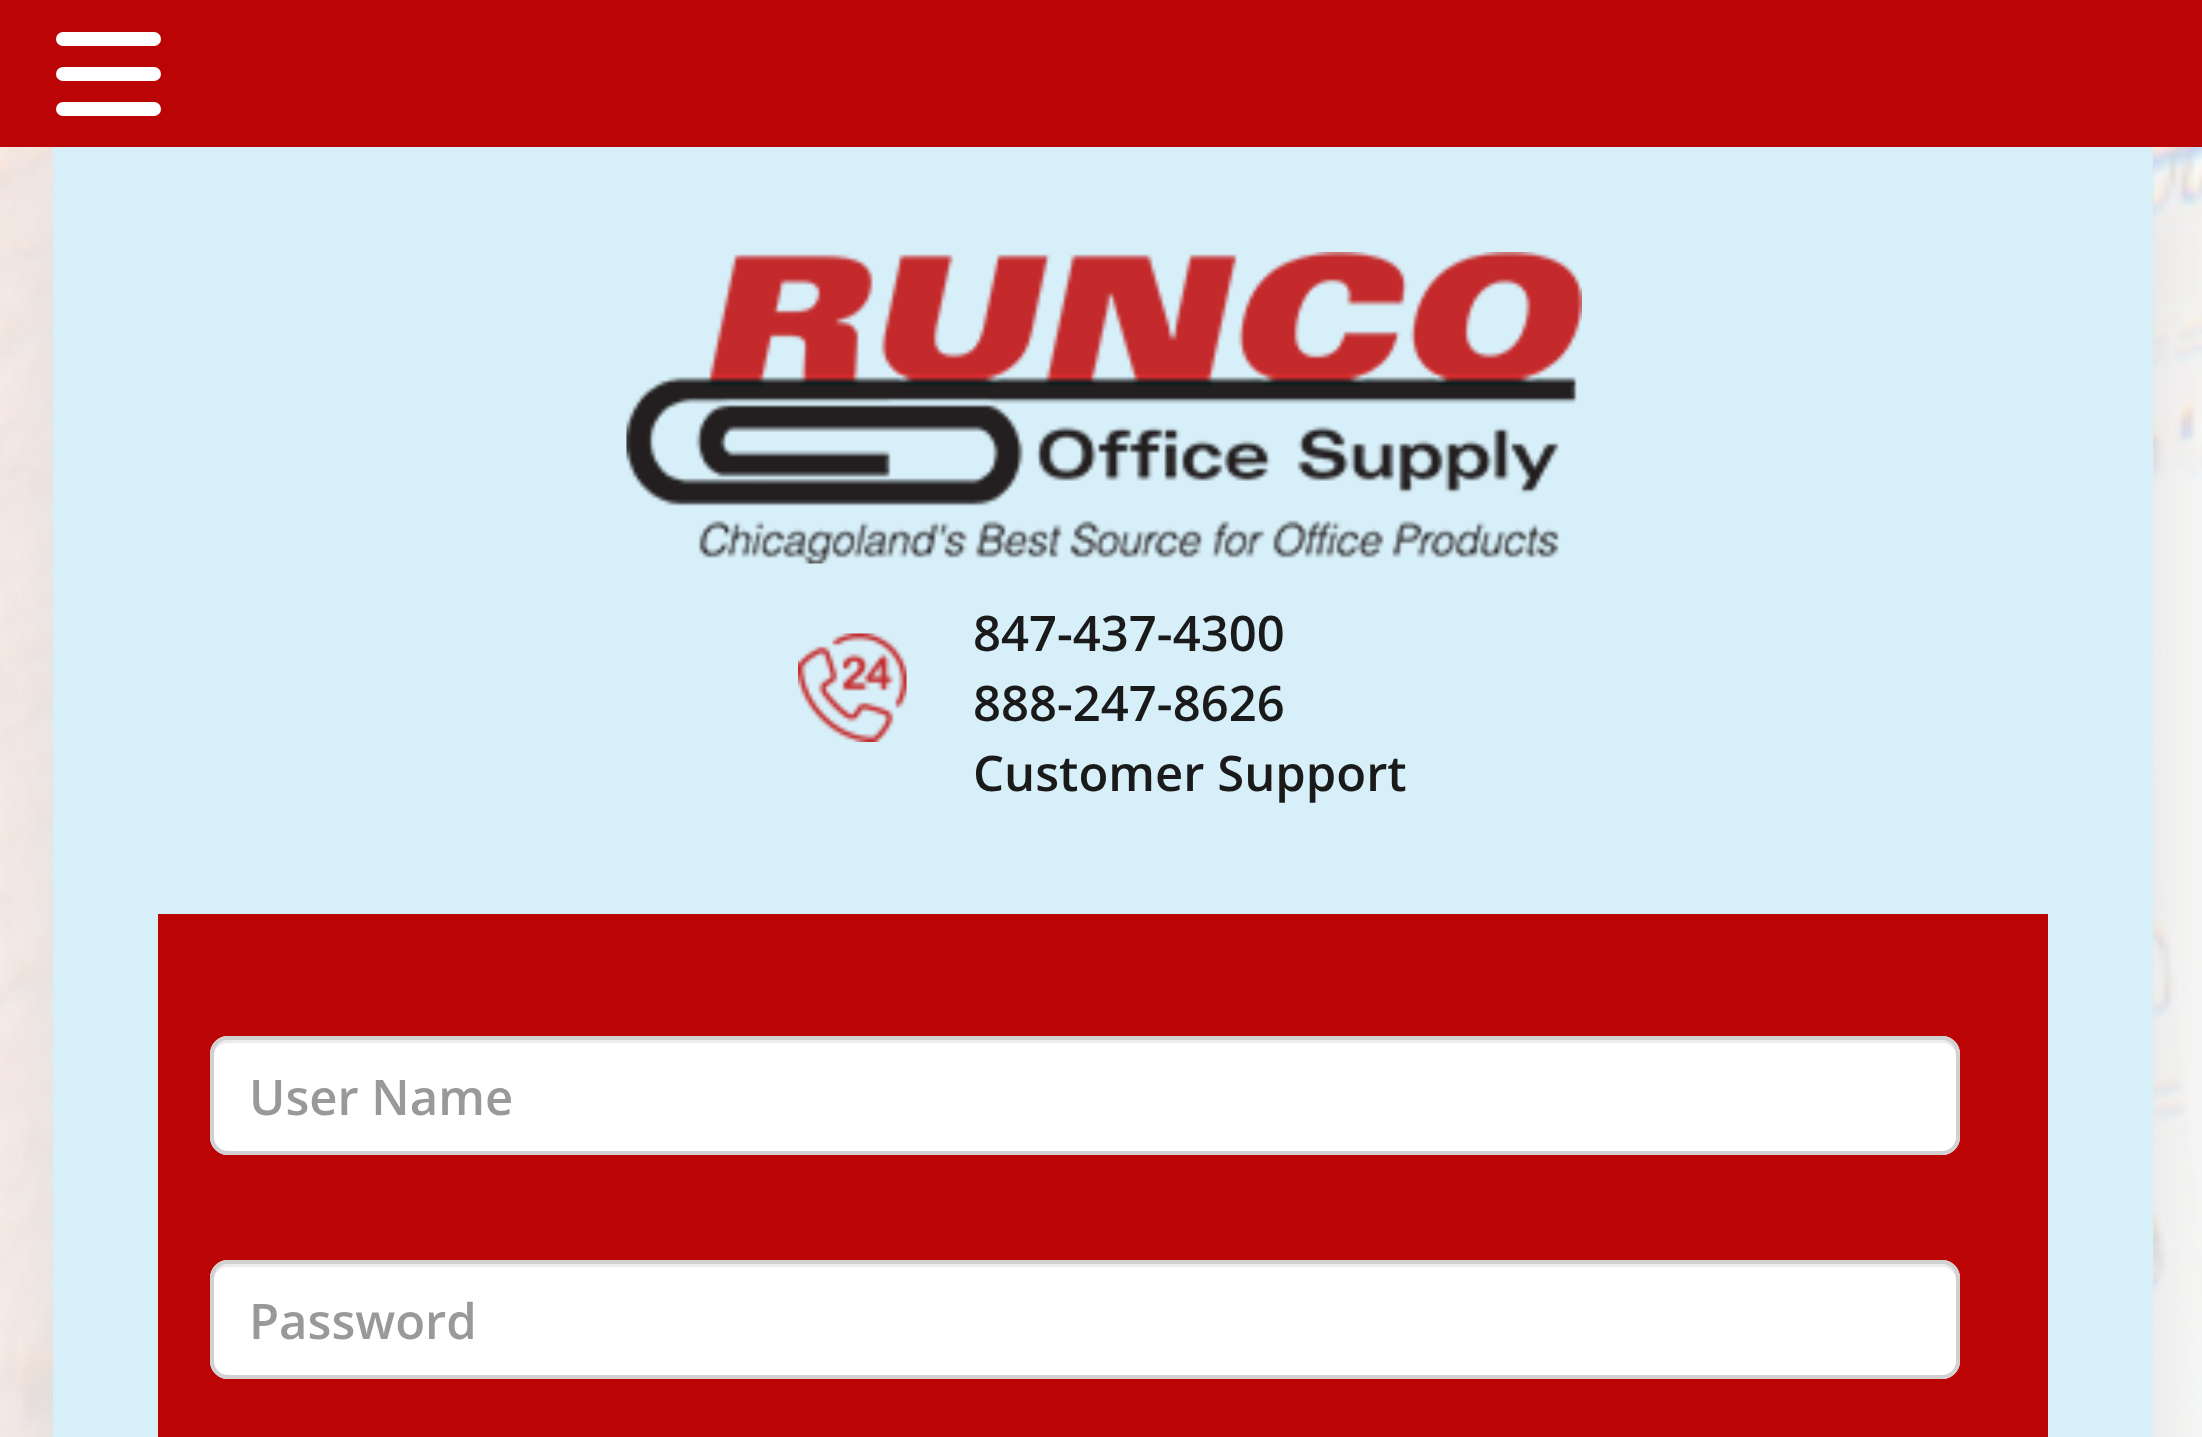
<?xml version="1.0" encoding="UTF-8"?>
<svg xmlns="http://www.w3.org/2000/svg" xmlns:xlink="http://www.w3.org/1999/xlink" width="2202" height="1437">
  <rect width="100%" height="100%" fill="#ffffff" />
  <image x="0" y="147" width="2202" height="1290" xlink:href="image1.png" />
  <rect x="53" y="168" width="2100" height="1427" fill="#dedede" filter="blur(52.5px)" />
  <rect width="2202" height="147" fill="#bb0406" />
  <rect x="56" y="32" width="105" height="14" rx="7" fill="#ffffff" />
  <rect x="56" y="67" width="105" height="14" rx="7" fill="#ffffff" />
  <rect x="56" y="102" width="105" height="14" rx="7" fill="#ffffff" />
  <rect x="53" y="147" width="2100" height="1290" fill="#d7eff8" />
  <image x="626" y="252" width="956" height="312" xlink:href="image2.png" />
  <image x="798" y="633" width="109" height="109" xlink:href="image3.png" />
  <rect x="158" y="914" width="1890" height="523" fill="#ba0406" />
  <rect x="210" y="1036" width="1750" height="119" rx="18" fill="#ffffff" />
  <path d="M 228 1043 h 1714 c 8 0 14 6 14 14 v 87 c 1 -2 1 -4 1 -6 v -84 c 0 -8 -6 -14 -14 -14 h -1715 c -8 0 -14 6 -14 14 v 3 c 0 -8 6 -14 14 -14 z" fill="#ececec" />
  <rect x="212" y="1038" width="1746" height="115" rx="16" fill="none" stroke="#d1d1d1" stroke-width="4" />
  <rect x="210" y="1260" width="1750" height="119" rx="18" fill="#ffffff" />
  <path d="M 228 1267 h 1714 c 8 0 14 6 14 14 v 87 c 1 -2 1 -4 1 -6 v -84 c 0 -8 -6 -14 -14 -14 h -1715 c -8 0 -14 6 -14 14 v 3 c 0 -8 6 -14 14 -14 z" fill="#ececec" />
  <rect x="212" y="1262" width="1746" height="115" rx="16" fill="none" stroke="#d1d1d1" stroke-width="4" />
  <text x="973" y="651" style="font-family: Open Sans; font-size: 49px; font-weight: 600; fill: #1a1a1a">847-437-4300</text>
  <text x="973" y="721" style="font-family: Open Sans; font-size: 49px; font-weight: 600; fill: #1a1a1a">888-247-8626</text>
  <text x="973" y="791" style="font-family: Open Sans; font-size: 49px; font-weight: 600; fill: #1a1a1a">Customer Support</text>
  <text x="249" y="1115" style="font-family: Open Sans; font-size: 49px; font-weight: 600; fill: #999999">User Name</text>
  <text x="249" y="1339" style="font-family: Open Sans; font-size: 49px; font-weight: 600; fill: #999999">Password</text>
</svg>
